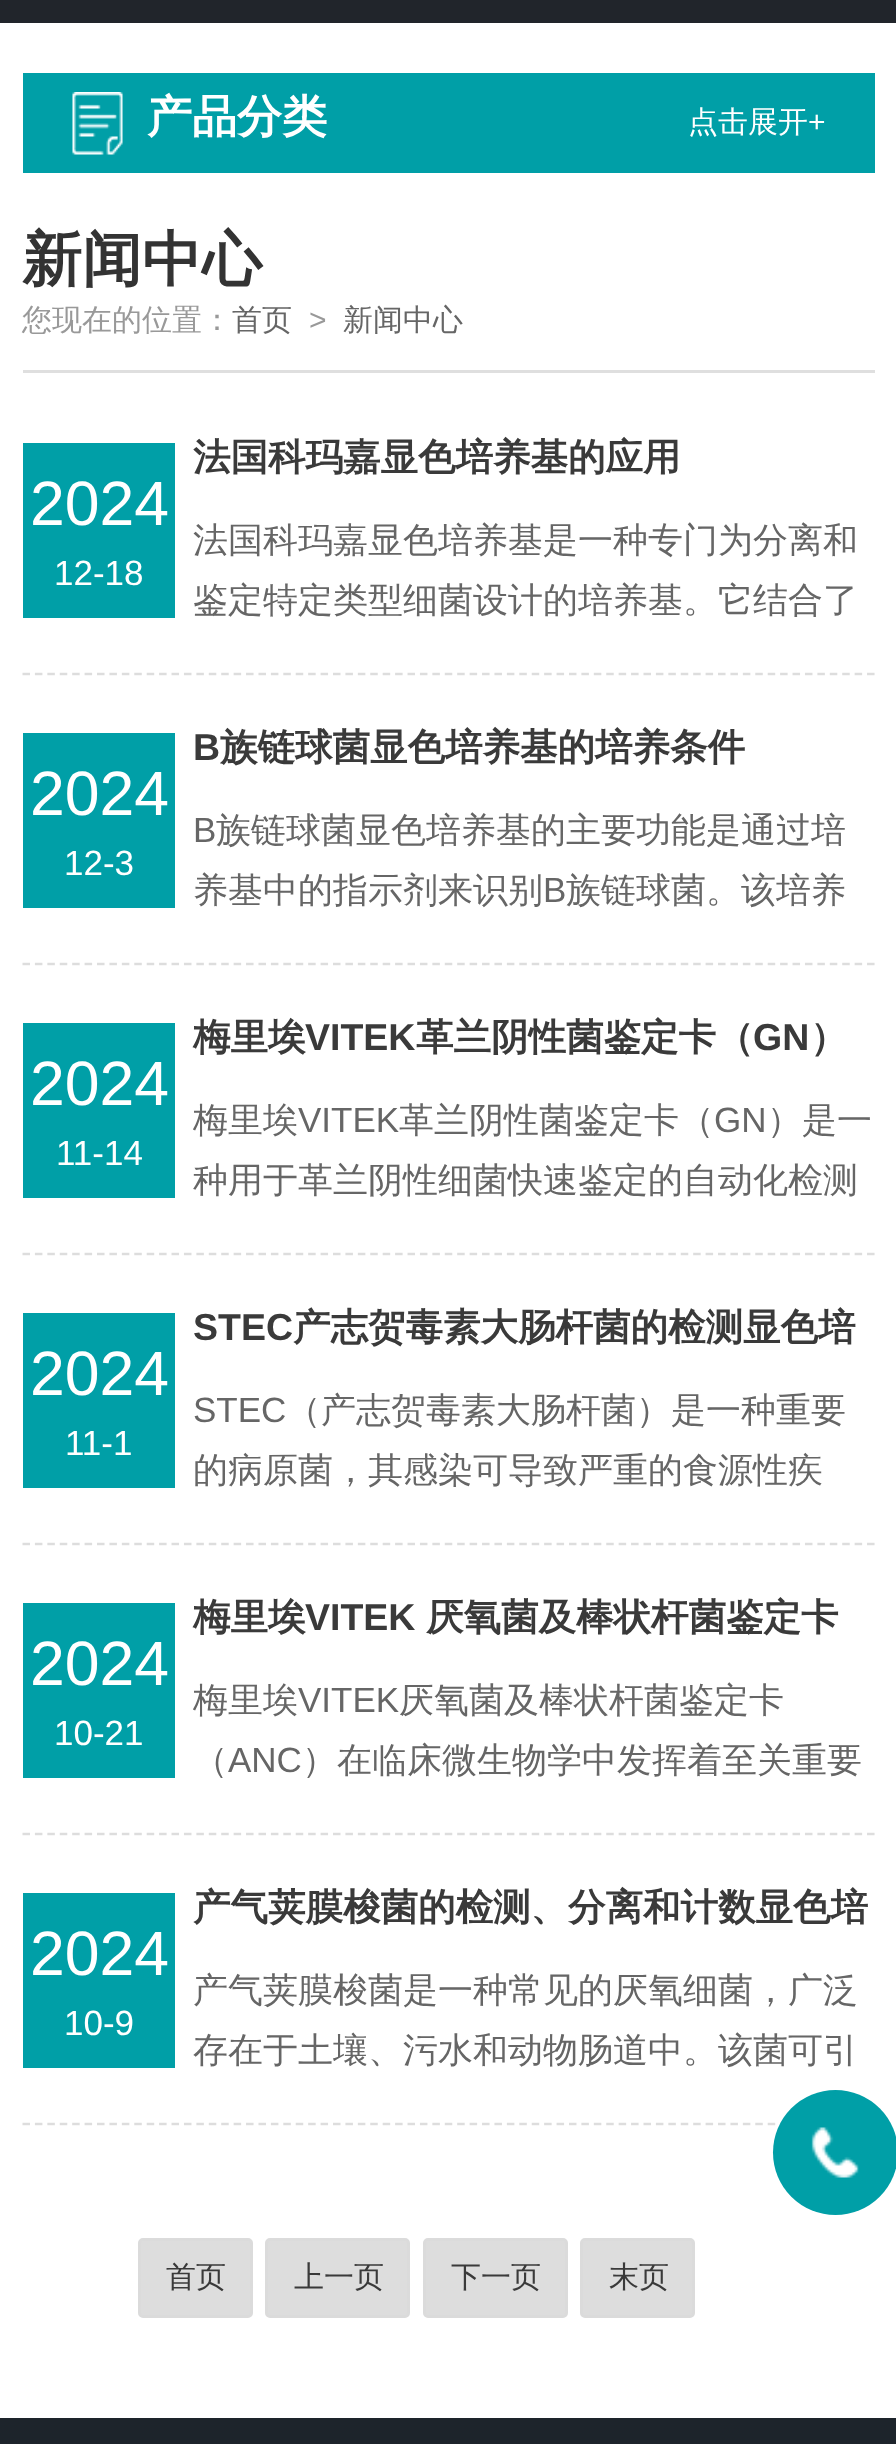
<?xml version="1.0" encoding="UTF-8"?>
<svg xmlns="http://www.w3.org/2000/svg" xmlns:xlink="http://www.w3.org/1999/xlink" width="896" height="2444">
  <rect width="100%" height="100%" fill="#ffffff" />
  <rect width="896" height="23" fill="#21252b" />
  <rect x="23" y="73" width="852" height="100" fill="#009fa7" />
  <image x="72" y="92" width="51" height="63" xlink:href="image1.png" />
  <rect x="23" y="370" width="852" height="3" fill="#dfdfdf" />
  <path d="M 22.5 674 h 852.5" fill="none" stroke="#dddddd" stroke-width="2.5" stroke-dasharray="7.5 4.92" />
  <rect x="23" y="443" width="152" height="175" fill="#009fa7" />
  <path d="M 22.5 964 h 852.5" fill="none" stroke="#dddddd" stroke-width="2.5" stroke-dasharray="7.5 4.92" />
  <rect x="23" y="733" width="152" height="175" fill="#009fa7" />
  <path d="M 22.5 1254 h 852.5" fill="none" stroke="#dddddd" stroke-width="2.5" stroke-dasharray="7.5 4.92" />
  <rect x="23" y="1023" width="152" height="175" fill="#009fa7" />
  <path d="M 22.5 1544 h 852.5" fill="none" stroke="#dddddd" stroke-width="2.5" stroke-dasharray="7.5 4.92" />
  <rect x="23" y="1313" width="152" height="175" fill="#009fa7" />
  <path d="M 22.5 1834 h 852.5" fill="none" stroke="#dddddd" stroke-width="2.5" stroke-dasharray="7.5 4.92" />
  <rect x="23" y="1603" width="152" height="175" fill="#009fa7" />
  <path d="M 22.5 2124 h 852.5" fill="none" stroke="#dddddd" stroke-width="2.5" stroke-dasharray="7.5 4.92" />
  <rect x="23" y="1893" width="152" height="175" fill="#009fa7" />
  <rect x="139.5" y="2239.5" width="112" height="77" rx="3.5" fill="#dddddd" stroke="#dbdbdb" stroke-width="3" />
  <rect x="266.5" y="2239.5" width="142" height="77" rx="3.5" fill="#dddddd" stroke="#dbdbdb" stroke-width="3" />
  <rect x="424.5" y="2239.5" width="142" height="77" rx="3.5" fill="#dddddd" stroke="#dbdbdb" stroke-width="3" />
  <rect x="581.5" y="2239.5" width="112" height="77" rx="3.5" fill="#dddddd" stroke="#dbdbdb" stroke-width="3" />
  <circle cx="835.5" cy="2152.5" r="62.5" fill="#009fa7" />
  <image x="811" y="2127" width="48" height="51" xlink:href="image2.png" />
  <rect y="2418" width="896" height="26" fill="#1d242b" />
  <text x="147" y="132" style="font-family: WenQuanYi Zen Hei; font-size: 45px; font-weight: bold; fill: #ffffff">产品分类</text>
  <text x="688" y="132" style="font-family: WenQuanYi Zen Hei; font-size: 30px; font-weight: 500; fill: #ffffff">点击展开</text>
  <text x="808" y="132" style="font-family: Liberation Sans; font-size: 30px; fill: #ffffff">+</text>
  <text x="22" y="280" style="font-family: WenQuanYi Zen Hei; font-size: 60px; font-weight: bold; fill: #333333">新闻中心</text>
  <text x="22" y="330" style="font-family: WenQuanYi Zen Hei; font-size: 30px; font-weight: 500; fill: #999999">您现在的位置：</text>
  <text x="232" y="330" style="font-family: WenQuanYi Zen Hei; font-size: 30px; font-weight: 500; fill: #666666">首页</text>
  <text x="309" y="330" style="font-family: Liberation Sans; font-size: 30px; fill: #999999">&gt;</text>
  <text x="343" y="330" style="font-family: WenQuanYi Zen Hei; font-size: 30px; font-weight: 500; fill: #666666">新闻中心</text>
  <text x="30" y="525" style="font-family: Liberation Sans; font-size: 62.5px; fill: #ffffff">2024</text>
  <text x="54" y="585" style="font-family: Liberation Sans; font-size: 35px; fill: #ffffff">12-18</text>
  <text x="193" y="470" style="font-family: WenQuanYi Zen Hei; font-size: 37.5px; font-weight: bold; fill: #3a3a3a">法国科玛嘉显色培养基的应用</text>
  <text x="193" y="552" style="font-family: WenQuanYi Zen Hei; font-size: 35px; font-weight: 500; fill: #666666">法国科玛嘉显色培养基是一种专门为分离和</text>
  <text x="193" y="612" style="font-family: WenQuanYi Zen Hei; font-size: 35px; font-weight: 500; fill: #666666">鉴定特定类型细菌设计的培养基。它结合了</text>
  <text x="30" y="815" style="font-family: Liberation Sans; font-size: 62.5px; fill: #ffffff">2024</text>
  <text x="64" y="875" style="font-family: Liberation Sans; font-size: 35px; fill: #ffffff">12-3</text>
  <text x="193" y="760" style="font-family: Liberation Sans; font-size: 37.5px; font-weight: bold; fill: #3a3a3a">B</text>
  <text x="220" y="760" style="font-family: WenQuanYi Zen Hei; font-size: 37.5px; font-weight: bold; fill: #3a3a3a">族链球菌显色培养基的培养条件</text>
  <text x="193" y="842" style="font-family: Liberation Sans; font-size: 35px; fill: #666666">B</text>
  <text x="216" y="842" style="font-family: WenQuanYi Zen Hei; font-size: 35px; font-weight: 500; fill: #666666">族链球菌显色培养基的主要功能是通过培</text>
  <text x="193" y="902" style="font-family: WenQuanYi Zen Hei; font-size: 35px; font-weight: 500; fill: #666666">养基中的指示剂来识别</text>
  <text x="543" y="902" style="font-family: Liberation Sans; font-size: 35px; fill: #666666">B</text>
  <text x="566" y="902" style="font-family: WenQuanYi Zen Hei; font-size: 35px; font-weight: 500; fill: #666666">族链球菌。该培养</text>
  <text x="30" y="1105" style="font-family: Liberation Sans; font-size: 62.5px; fill: #ffffff">2024</text>
  <text x="56" y="1165" style="font-family: Liberation Sans; font-size: 35px; fill: #ffffff">11-14</text>
  <text x="193" y="1050" style="font-family: WenQuanYi Zen Hei; font-size: 37.5px; font-weight: bold; fill: #3a3a3a">梅里埃</text>
  <text x="305" y="1050" style="font-family: Liberation Sans; font-size: 37.5px; font-weight: bold; fill: #3a3a3a">VITEK</text>
  <text x="416" y="1050" style="font-family: WenQuanYi Zen Hei; font-size: 37.5px; font-weight: bold; fill: #3a3a3a">革兰阴性菌鉴定卡（</text>
  <text x="753" y="1050" style="font-family: Liberation Sans; font-size: 37.5px; font-weight: bold; fill: #3a3a3a">GN</text>
  <text x="810" y="1050" style="font-family: WenQuanYi Zen Hei; font-size: 37.5px; font-weight: bold; fill: #3a3a3a">）</text>
  <text x="193" y="1132" style="font-family: WenQuanYi Zen Hei; font-size: 35px; font-weight: 500; fill: #666666">梅里埃</text>
  <text x="298" y="1132" style="font-family: Liberation Sans; font-size: 35px; fill: #666666">VITEK</text>
  <text x="399" y="1132" style="font-family: WenQuanYi Zen Hei; font-size: 35px; font-weight: 500; fill: #666666">革兰阴性菌鉴定卡（</text>
  <text x="714" y="1132" style="font-family: Liberation Sans; font-size: 35px; fill: #666666">GN</text>
  <text x="767" y="1132" style="font-family: WenQuanYi Zen Hei; font-size: 35px; font-weight: 500; fill: #666666">）是一</text>
  <text x="193" y="1192" style="font-family: WenQuanYi Zen Hei; font-size: 35px; font-weight: 500; fill: #666666">种用于革兰阴性细菌快速鉴定的自动化检测</text>
  <text x="30" y="1395" style="font-family: Liberation Sans; font-size: 62.5px; fill: #ffffff">2024</text>
  <text x="65" y="1455" style="font-family: Liberation Sans; font-size: 35px; fill: #ffffff">11-1</text>
  <text x="193" y="1340" style="font-family: Liberation Sans; font-size: 37.5px; font-weight: bold; fill: #3a3a3a">STEC</text>
  <text x="293" y="1340" style="font-family: WenQuanYi Zen Hei; font-size: 37.5px; font-weight: bold; fill: #3a3a3a">产志贺毒素大肠杆菌的检测显色培</text>
  <text x="193" y="1422" style="font-family: Liberation Sans; font-size: 35px; fill: #666666">STEC</text>
  <text x="286" y="1422" style="font-family: WenQuanYi Zen Hei; font-size: 35px; font-weight: 500; fill: #666666">（产志贺毒素大肠杆菌）是一种重要</text>
  <text x="193" y="1482" style="font-family: WenQuanYi Zen Hei; font-size: 35px; font-weight: 500; fill: #666666">的病原菌，其感染可导致严重的食源性疾</text>
  <text x="30" y="1685" style="font-family: Liberation Sans; font-size: 62.5px; fill: #ffffff">2024</text>
  <text x="54" y="1745" style="font-family: Liberation Sans; font-size: 35px; fill: #ffffff">10-21</text>
  <text x="193" y="1630" style="font-family: WenQuanYi Zen Hei; font-size: 37.5px; font-weight: bold; fill: #3a3a3a">梅里埃</text>
  <text x="305" y="1630" style="font-family: Liberation Sans; font-size: 37.5px; font-weight: bold; fill: #3a3a3a">VITEK</text>
  <text x="426" y="1630" style="font-family: WenQuanYi Zen Hei; font-size: 37.5px; font-weight: bold; fill: #3a3a3a">厌氧菌及棒状杆菌鉴定卡</text>
  <text x="193" y="1712" style="font-family: WenQuanYi Zen Hei; font-size: 35px; font-weight: 500; fill: #666666">梅里埃</text>
  <text x="298" y="1712" style="font-family: Liberation Sans; font-size: 35px; fill: #666666">VITEK</text>
  <text x="399" y="1712" style="font-family: WenQuanYi Zen Hei; font-size: 35px; font-weight: 500; fill: #666666">厌氧菌及棒状杆菌鉴定卡</text>
  <text x="193" y="1772" style="font-family: WenQuanYi Zen Hei; font-size: 35px; font-weight: 500; fill: #666666">（</text>
  <text x="228" y="1772" style="font-family: Liberation Sans; font-size: 35px; fill: #666666">ANC</text>
  <text x="302" y="1772" style="font-family: WenQuanYi Zen Hei; font-size: 35px; font-weight: 500; fill: #666666">）在临床微生物学中发挥着至关重要</text>
  <text x="30" y="1975" style="font-family: Liberation Sans; font-size: 62.5px; fill: #ffffff">2024</text>
  <text x="64" y="2035" style="font-family: Liberation Sans; font-size: 35px; fill: #ffffff">10-9</text>
  <text x="193" y="1920" style="font-family: WenQuanYi Zen Hei; font-size: 37.5px; font-weight: bold; fill: #3a3a3a">产气荚膜梭菌的检测、分离和计数显色培</text>
  <text x="193" y="2002" style="font-family: WenQuanYi Zen Hei; font-size: 35px; font-weight: 500; fill: #666666">产气荚膜梭菌是一种常见的厌氧细菌，广泛</text>
  <text x="193" y="2062" style="font-family: WenQuanYi Zen Hei; font-size: 35px; font-weight: 500; fill: #666666">存在于土壤、污水和动物肠道中。该菌可引</text>
  <text x="166" y="2287" style="font-family: WenQuanYi Zen Hei; font-size: 30px; font-weight: 500; fill: #3a3a3a">首页</text>
  <text x="294" y="2287" style="font-family: WenQuanYi Zen Hei; font-size: 30px; font-weight: 500; fill: #3a3a3a">上一页</text>
  <text x="451" y="2287" style="font-family: WenQuanYi Zen Hei; font-size: 30px; font-weight: 500; fill: #3a3a3a">下一页</text>
  <text x="609" y="2287" style="font-family: WenQuanYi Zen Hei; font-size: 30px; font-weight: 500; fill: #3a3a3a">末页</text>
</svg>
